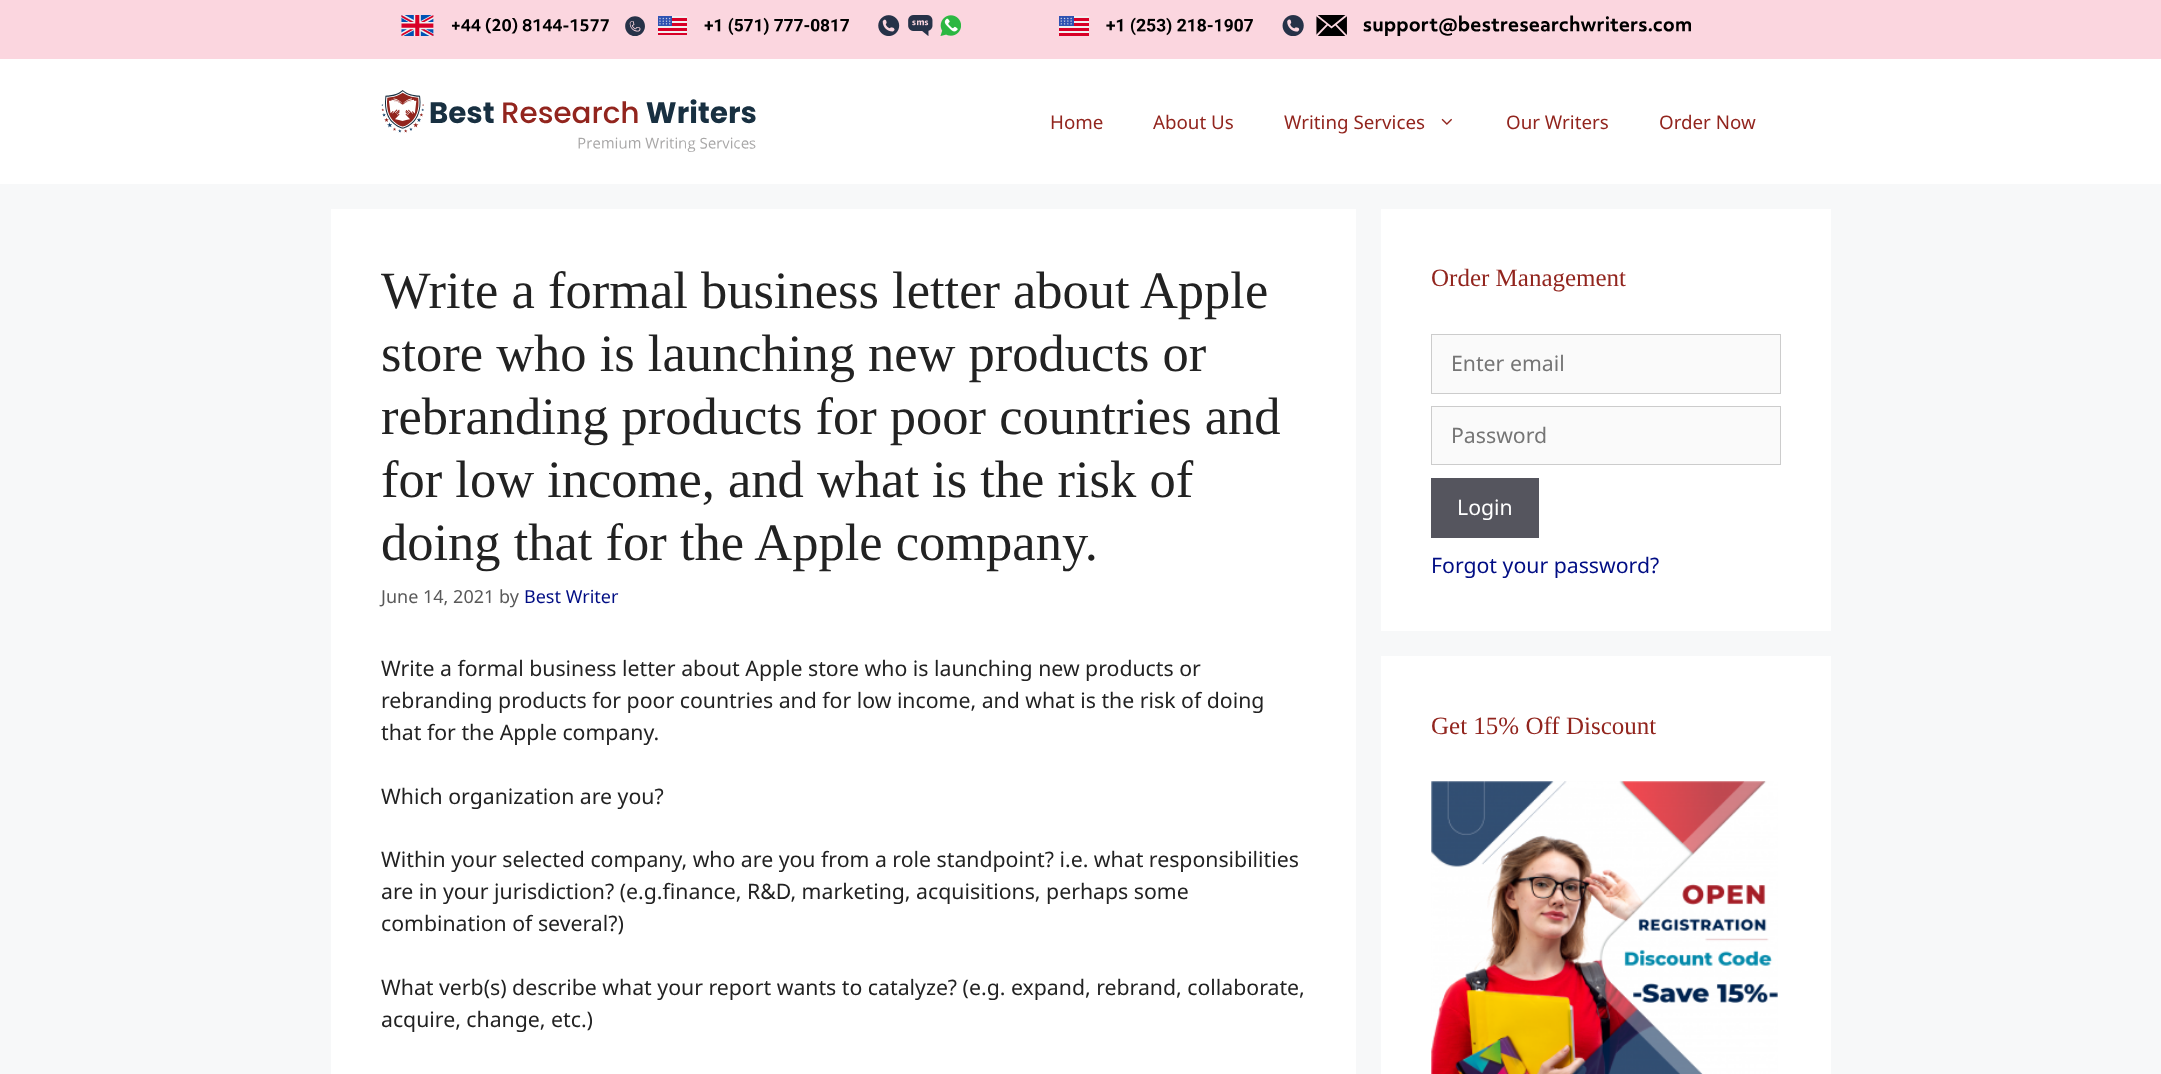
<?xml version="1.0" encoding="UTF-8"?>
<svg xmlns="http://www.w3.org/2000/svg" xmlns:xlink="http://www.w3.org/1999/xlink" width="2161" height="1074">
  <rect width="100%" height="100%" fill="#f7f8f9" />
  <rect width="2161" height="59" fill="#fbd6df" />
  <image x="401" y="15" width="244" height="21" xlink:href="image1.png" />
  <image x="658" y="15" width="303" height="21" xlink:href="image2.png" />
  <image x="1059" y="15" width="245" height="21" xlink:href="image3.png" />
  <image x="1316" y="15" width="375" height="21" xlink:href="image4.png" />
  <rect y="59" width="2161" height="125" fill="#ffffff" />
  <image x="381" y="90" width="375" height="62" xlink:href="image5.png" />
  <image x="1441" y="118" width="11" height="7" xlink:href="image6.png" />
  <rect x="331" y="209" width="1025" height="865" fill="#ffffff" />
  <rect x="1381" y="209" width="450" height="422" fill="#ffffff" />
  <rect x="1431.5" y="334.5" width="349" height="59" fill="#fafafa" stroke="#cccccc" />
  <rect x="1431.5" y="406.5" width="349" height="58" fill="#fafafa" stroke="#cccccc" />
  <rect x="1431" y="478" width="108" height="60" fill="#55555e" />
  <rect x="1381" y="656" width="450" height="418" fill="#ffffff" />
  <image x="1431" y="781" width="347" height="293" xlink:href="image7.png" />
  <text x="1050" y="129" style="font-family: Noto Sans; font-size: 18.75px; fill: #92251e">Home</text>
  <text x="1153" y="129" style="font-family: Noto Sans; font-size: 18.75px; fill: #92251e">About Us</text>
  <text x="1284" y="129" style="font-family: Noto Sans; font-size: 18.75px; fill: #92251e">Writing Services</text>
  <text x="1506" y="129" style="font-family: Noto Sans; font-size: 18.75px; fill: #92251e">Our Writers</text>
  <text x="1659" y="129" style="font-family: Noto Sans; font-size: 18.75px; fill: #92251e">Order Now</text>
  <text x="381" y="308" style="font-family: Liberation Serif; font-size: 52.5px; fill: #222222">Write a formal business letter about Apple</text>
  <text x="381" y="371" style="font-family: Liberation Serif; font-size: 52.5px; fill: #222222">store who is launching new products or</text>
  <text x="381" y="434" style="font-family: Liberation Serif; font-size: 52.5px; fill: #222222">rebranding products for poor countries and</text>
  <text x="381" y="497" style="font-family: Liberation Serif; font-size: 52.5px; fill: #222222">for low income, and what is the risk of</text>
  <text x="381" y="560" style="font-family: Liberation Serif; font-size: 52.5px; fill: #222222">doing that for the Apple company.</text>
  <text x="381" y="603" style="font-family: Noto Sans; font-size: 18px; fill: #595959">June 14, 2021 by</text>
  <text x="524" y="603" style="font-family: Noto Sans; font-size: 18px; fill: #000d84">Best Writer</text>
  <text x="381" y="676" style="font-family: Noto Sans; font-size: 21.25px; fill: #222222">Write a formal business letter about Apple store who is launching new products or</text>
  <text x="381" y="708" style="font-family: Noto Sans; font-size: 21.25px; fill: #222222">rebranding products for poor countries and for low income, and what is the risk of doing</text>
  <text x="381" y="740" style="font-family: Noto Sans; font-size: 21.25px; fill: #222222">that for the Apple company.</text>
  <text x="381" y="804" style="font-family: Noto Sans; font-size: 21.25px; fill: #222222">Which organization are you?</text>
  <text x="381" y="867" style="font-family: Noto Sans; font-size: 21.25px; fill: #222222">Within your selected company, who are you from a role standpoint? i.e. what responsibilities</text>
  <text x="381" y="899" style="font-family: Noto Sans; font-size: 21.25px; fill: #222222">are in your jurisdiction? (e.g.finance, R&amp;D, marketing, acquisitions, perhaps some</text>
  <text x="381" y="931" style="font-family: Noto Sans; font-size: 21.25px; fill: #222222">combination of several?)</text>
  <text x="381" y="995" style="font-family: Noto Sans; font-size: 21.25px; fill: #222222">What verb(s) describe what your report wants to catalyze? (e.g. expand, rebrand, collaborate,</text>
  <text x="381" y="1027" style="font-family: Noto Sans; font-size: 21.25px; fill: #222222">acquire, change, etc.)</text>
  <text x="1431" y="286" style="font-family: Liberation Serif; font-size: 25px; fill: #92251e">Order Management</text>
  <text x="1451" y="371" style="font-family: Noto Sans; font-size: 21.25px; fill: #757575">Enter email</text>
  <text x="1451" y="443" style="font-family: Noto Sans; font-size: 21.25px; fill: #757575">Password</text>
  <text x="1457" y="515" style="font-family: Noto Sans; font-size: 21.25px; fill: #ffffff">Login</text>
  <text x="1431" y="573" style="font-family: Noto Sans; font-size: 21.25px; fill: #000d84">Forgot your password?</text>
  <text x="1431" y="734" style="font-family: Liberation Serif; font-size: 25px; fill: #92251e">Get 15% Off Discount</text>
</svg>
